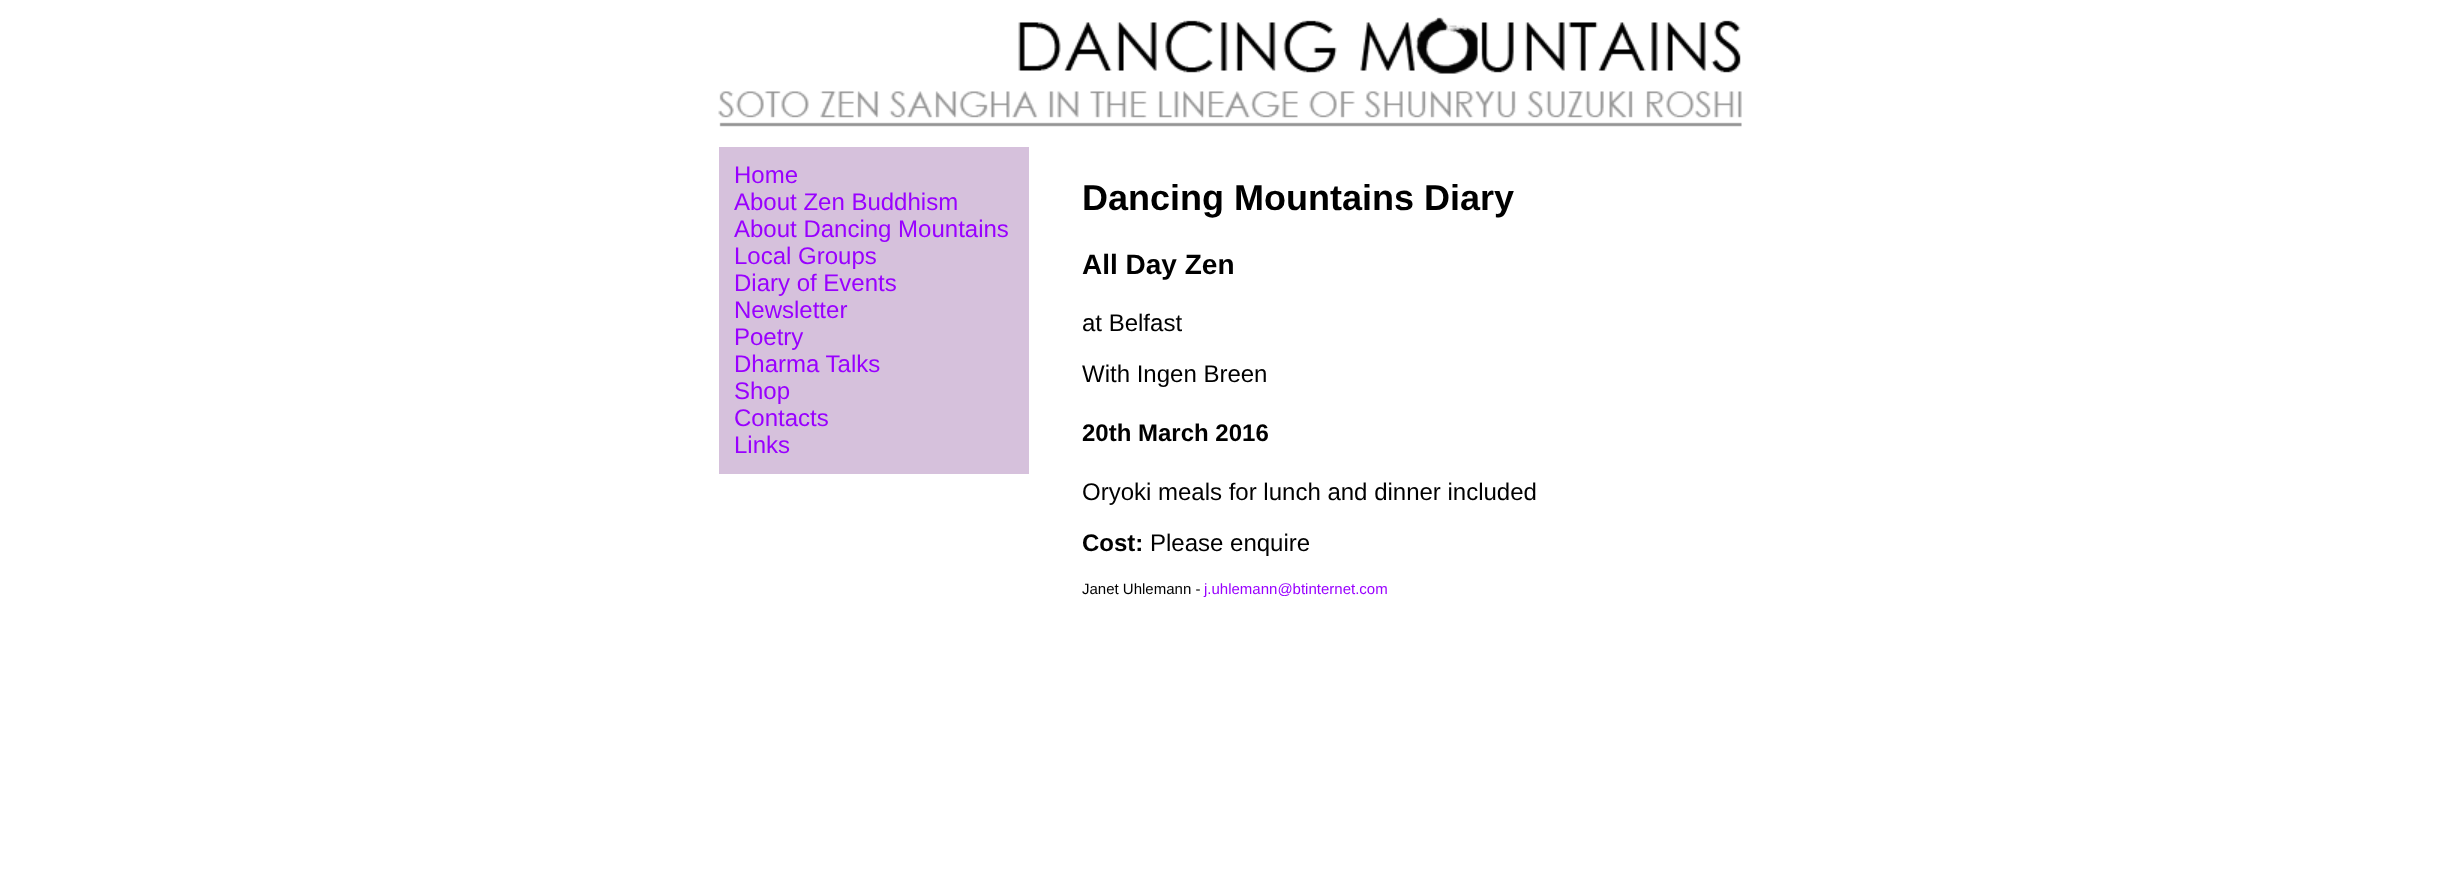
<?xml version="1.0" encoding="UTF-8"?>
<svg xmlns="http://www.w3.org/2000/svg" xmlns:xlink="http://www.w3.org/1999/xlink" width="2461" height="881">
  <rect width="100%" height="100%" fill="#ffffff" />
  <image x="718" y="17" width="1024" height="110" xlink:href="image1.png" />
  <rect x="719" y="147" width="310" height="327" fill="#d6c1dc" />
  <text x="734" y="183" style="font-family: Liberation Sans; font-size: 24px; fill: #9900ff">Home</text>
  <text x="734" y="210" style="font-family: Liberation Sans; font-size: 24px; fill: #9900ff">About Zen Buddhism</text>
  <text x="734" y="237" style="font-family: Liberation Sans; font-size: 24px; fill: #9900ff">About Dancing Mountains</text>
  <text x="734" y="264" style="font-family: Liberation Sans; font-size: 24px; fill: #9900ff">Local Groups</text>
  <text x="734" y="291" style="font-family: Liberation Sans; font-size: 24px; fill: #9900ff">Diary of Events</text>
  <text x="734" y="318" style="font-family: Liberation Sans; font-size: 24px; fill: #9900ff">Newsletter</text>
  <text x="734" y="345" style="font-family: Liberation Sans; font-size: 24px; fill: #9900ff">Poetry</text>
  <text x="734" y="372" style="font-family: Liberation Sans; font-size: 24px; fill: #9900ff">Dharma Talks</text>
  <text x="734" y="399" style="font-family: Liberation Sans; font-size: 24px; fill: #9900ff">Shop</text>
  <text x="734" y="426" style="font-family: Liberation Sans; font-size: 24px; fill: #9900ff">Contacts</text>
  <text x="734" y="453" style="font-family: Liberation Sans; font-size: 24px; fill: #9900ff">Links</text>
  <text x="1082" y="210" style="font-family: Liberation Sans; font-size: 36px; font-weight: bold; fill: #000000">Dancing Mountains Diary</text>
  <text x="1082" y="274" style="font-family: Liberation Sans; font-size: 28px; font-weight: bold; fill: #000000">All Day Zen</text>
  <text x="1082" y="331" style="font-family: Liberation Sans; font-size: 24px; fill: #000000">at Belfast</text>
  <text x="1082" y="382" style="font-family: Liberation Sans; font-size: 24px; fill: #000000">With Ingen Breen</text>
  <text x="1082" y="441" style="font-family: Liberation Sans; font-size: 24px; font-weight: bold; fill: #000000">20th March 2016</text>
  <text x="1082" y="500" style="font-family: Liberation Sans; font-size: 24px; fill: #000000">Oryoki meals for lunch and dinner included</text>
  <text x="1082" y="551" style="font-family: Liberation Sans; font-size: 24px; font-weight: bold; fill: #000000">Cost:</text>
  <text x="1150" y="551" style="font-family: Liberation Sans; font-size: 24px; fill: #000000">Please enquire</text>
  <text x="1082" y="594" style="font-family: Liberation Sans; font-size: 15px; fill: #000000">Janet Uhlemann -</text>
  <text x="1204" y="594" style="font-family: Liberation Sans; font-size: 15px; fill: #9900ff">j.uhlemann@btinternet.com</text>
</svg>
